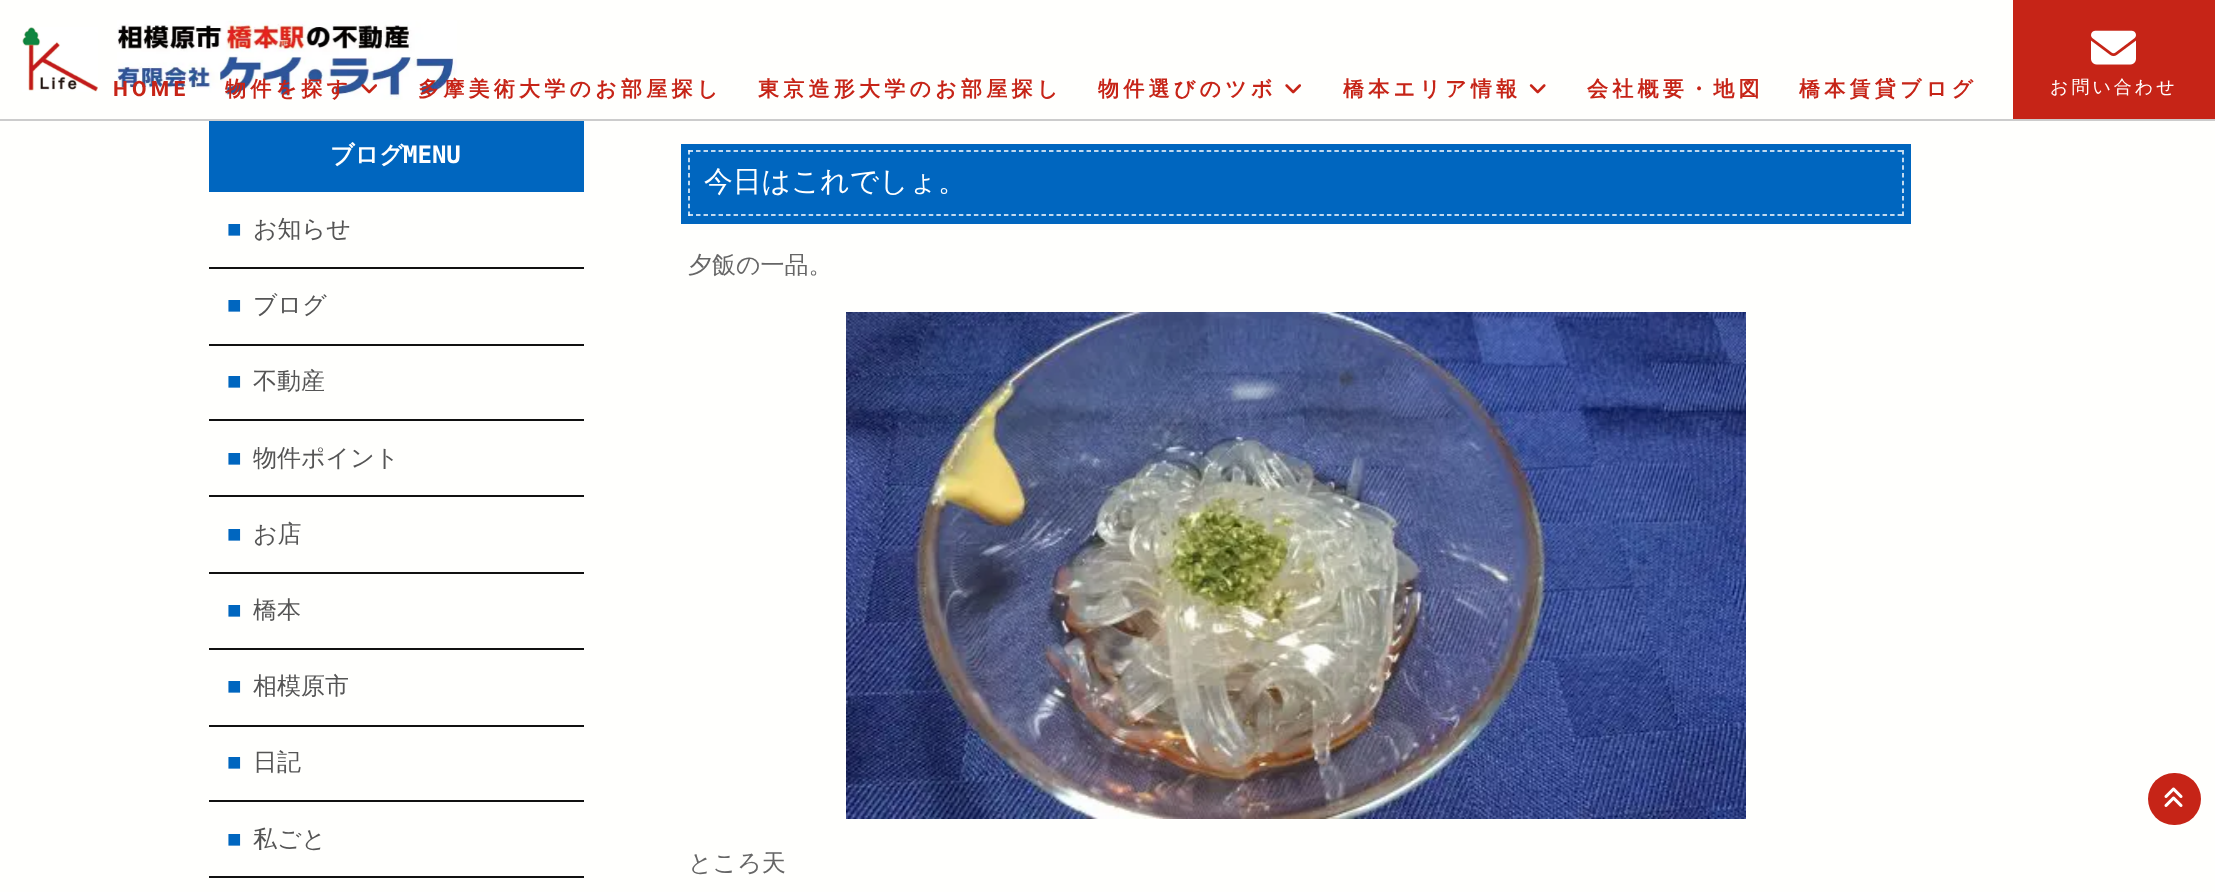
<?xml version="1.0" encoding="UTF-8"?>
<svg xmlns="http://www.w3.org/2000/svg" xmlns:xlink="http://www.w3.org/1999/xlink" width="2215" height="892">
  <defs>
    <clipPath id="clip1"><rect x="621" y="144" width="1350" height="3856" /></clipPath>
  </defs>
  <rect width="100%" height="100%" fill="#fffffd" />
  <rect y="119" width="2215" height="2" fill="#cccccc" />
  <image x="22" y="27" width="76" height="65" xlink:href="image1.png" />
  <image x="117" y="20" width="340" height="80" xlink:href="image2.png" />
  <image x="361" y="84" width="16" height="10" xlink:href="image3.png" />
  <image x="1285" y="84" width="16" height="10" xlink:href="image4.png" />
  <image x="1529" y="84" width="17" height="10" xlink:href="image5.png" />
  <rect x="2013" width="202" height="119" fill="#c62417" />
  <image x="2091" y="30" width="45" height="35" xlink:href="image6.png" />
  <rect x="209" y="121" width="375" height="71" fill="#0066bf" />
  <rect x="209" y="267" width="375" height="2" fill="#111111" />
  <rect x="209" y="344" width="375" height="2" fill="#111111" />
  <rect x="209" y="419" width="375" height="2" fill="#111111" />
  <rect x="209" y="495" width="375" height="2" fill="#111111" />
  <rect x="209" y="572" width="375" height="2" fill="#111111" />
  <rect x="209" y="648" width="375" height="2" fill="#111111" />
  <rect x="209" y="725" width="375" height="2" fill="#111111" />
  <rect x="209" y="800" width="375" height="2" fill="#111111" />
  <rect x="209" y="876" width="375" height="2" fill="#111111" />
  <g clip-path="url(#clip1)">
    <rect x="685" y="147" width="1222" height="73" fill="none" stroke="#0066bf" stroke-width="8" />
  </g>
  <rect x="689" y="151" width="1214" height="65" fill="#0066bf" />
  <path d="M 688.5 151 h 1215" fill="none" stroke="#ffffff" stroke-width="1.5" stroke-dasharray="4.5 3.01" />
  <path d="M 1903 150 v 66" fill="none" stroke="#ffffff" stroke-width="1.5" stroke-dasharray="4.5 3.18" />
  <path d="M 688.5 215 h 1215" fill="none" stroke="#ffffff" stroke-width="1.5" stroke-dasharray="4.5 3.01" />
  <path d="M 689 150 v 66" fill="none" stroke="#ffffff" stroke-width="1.5" stroke-dasharray="4.5 3.18" />
  <image x="846" y="312" width="900" height="507" xlink:href="image7.png" />
  <rect x="2148" y="773" width="53" height="52" rx="26" fill="#c62417" />
  <image x="2164" y="787" width="19" height="20" xlink:href="image8.png" />
  <text x="113" y="96" style="font-family: Roboto; font-size: 21px; font-weight: bold; letter-spacing: 4.25px; fill: #c62417">HOME</text>
  <text x="225" y="96" style="font-family: WenQuanYi Zen Hei; font-size: 21px; font-weight: bold; letter-spacing: 4.25px; fill: #c62417">物件を探す</text>
  <text x="418" y="96" style="font-family: WenQuanYi Zen Hei; font-size: 21px; font-weight: bold; letter-spacing: 4.25px; fill: #c62417">多摩美術大学のお部屋探し</text>
  <text x="758" y="96" style="font-family: WenQuanYi Zen Hei; font-size: 21px; font-weight: bold; letter-spacing: 4.25px; fill: #c62417">東京造形大学のお部屋探し</text>
  <text x="1098" y="96" style="font-family: WenQuanYi Zen Hei; font-size: 21px; font-weight: bold; letter-spacing: 4.25px; fill: #c62417">物件選びのツボ</text>
  <text x="1343" y="96" style="font-family: WenQuanYi Zen Hei; font-size: 21px; font-weight: bold; letter-spacing: 4.25px; fill: #c62417">橋本エリア情報</text>
  <text x="1587" y="96" style="font-family: WenQuanYi Zen Hei; font-size: 21px; font-weight: bold; letter-spacing: 4.25px; fill: #c62417">会社概要・地図</text>
  <text x="1799" y="96" style="font-family: WenQuanYi Zen Hei; font-size: 21px; font-weight: bold; letter-spacing: 4.25px; fill: #c62417">橋本賃貸ブログ</text>
  <text x="2050" y="93" style="font-family: WenQuanYi Zen Hei; font-size: 18px; font-weight: 500; letter-spacing: 3px; fill: #ffffff">お問い合わせ</text>
  <text x="330" y="163" style="font-family: WenQuanYi Zen Hei; font-size: 24px; font-weight: bold; fill: #ffffff">ブログ</text>
  <text x="403" y="163" style="font-family: DejaVu Sans Mono; font-size: 24px; font-weight: bold; fill: #ffffff">MENU</text>
  <text x="227" y="237" style="font-family: Liberation Sans; font-size: 24px; fill: #0066bf">■</text>
  <text x="253" y="237" style="font-family: WenQuanYi Zen Hei; font-size: 24px; font-weight: 500; fill: #555555">お知らせ</text>
  <text x="227" y="313" style="font-family: Liberation Sans; font-size: 24px; fill: #0066bf">■</text>
  <text x="253" y="313" style="font-family: WenQuanYi Zen Hei; font-size: 24px; font-weight: 500; fill: #555555">ブログ</text>
  <text x="227" y="389" style="font-family: Liberation Sans; font-size: 24px; fill: #0066bf">■</text>
  <text x="253" y="389" style="font-family: WenQuanYi Zen Hei; font-size: 24px; font-weight: 500; fill: #555555">不動産</text>
  <text x="227" y="466" style="font-family: Liberation Sans; font-size: 24px; fill: #0066bf">■</text>
  <text x="253" y="466" style="font-family: WenQuanYi Zen Hei; font-size: 24px; font-weight: 500; fill: #555555">物件ポイント</text>
  <text x="227" y="542" style="font-family: Liberation Sans; font-size: 24px; fill: #0066bf">■</text>
  <text x="253" y="542" style="font-family: WenQuanYi Zen Hei; font-size: 24px; font-weight: 500; fill: #555555">お店</text>
  <text x="227" y="618" style="font-family: Liberation Sans; font-size: 24px; fill: #0066bf">■</text>
  <text x="253" y="618" style="font-family: WenQuanYi Zen Hei; font-size: 24px; font-weight: 500; fill: #555555">橋本</text>
  <text x="227" y="694" style="font-family: Liberation Sans; font-size: 24px; fill: #0066bf">■</text>
  <text x="253" y="694" style="font-family: WenQuanYi Zen Hei; font-size: 24px; font-weight: 500; fill: #555555">相模原市</text>
  <text x="227" y="770" style="font-family: Liberation Sans; font-size: 24px; fill: #0066bf">■</text>
  <text x="253" y="770" style="font-family: WenQuanYi Zen Hei; font-size: 24px; font-weight: 500; fill: #555555">日記</text>
  <text x="227" y="847" style="font-family: Liberation Sans; font-size: 24px; fill: #0066bf">■</text>
  <text x="253" y="847" style="font-family: WenQuanYi Zen Hei; font-size: 24px; font-weight: 500; fill: #555555">私ごと</text>
  <text x="704" y="191" style="font-family: WenQuanYi Zen Hei; font-size: 28.75px; font-weight: 500; fill: #ffffff">今日はこれでしょ。</text>
  <text x="688" y="273" style="font-family: WenQuanYi Zen Hei; font-size: 24px; font-weight: 500; fill: #666666">夕飯の一品。</text>
  <text x="688" y="871" style="font-family: WenQuanYi Zen Hei; font-size: 24px; font-weight: 500; fill: #666666">ところ天</text>
</svg>
